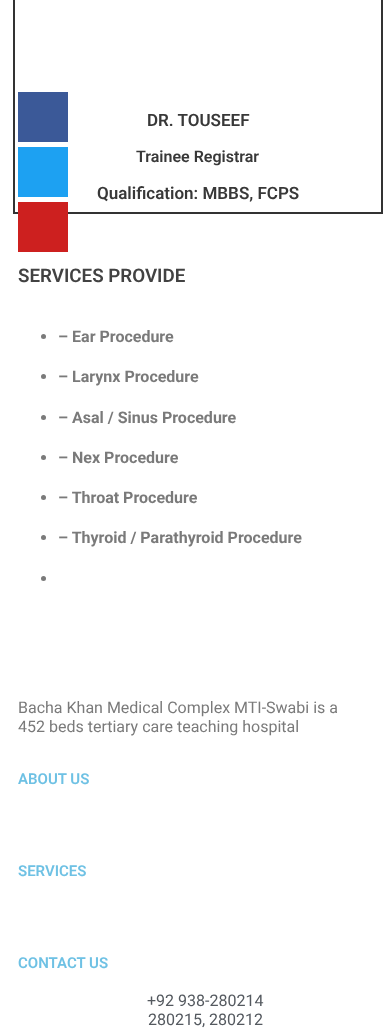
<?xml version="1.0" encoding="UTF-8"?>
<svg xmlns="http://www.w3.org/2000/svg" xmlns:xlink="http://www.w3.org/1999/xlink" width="386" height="1034">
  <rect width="100%" height="100%" fill="#ffffff" />
  <rect x="14" y="-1" width="368" height="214" fill="none" stroke="#333333" stroke-width="2" />
  <rect x="18" y="92" width="50" height="50" fill="#3b5998" />
  <rect x="18" y="147" width="50" height="50" fill="#1da1f2" />
  <rect x="18" y="202" width="50" height="50" fill="#cd201f" />
  <circle cx="43.5" cy="336.5" r="2.5" fill="#7a7a7a" />
  <circle cx="43.5" cy="376.5" r="2.5" fill="#7a7a7a" />
  <circle cx="43.5" cy="417.5" r="2.5" fill="#7a7a7a" />
  <circle cx="43.5" cy="457.5" r="2.5" fill="#7a7a7a" />
  <circle cx="43.5" cy="497.5" r="2.5" fill="#7a7a7a" />
  <circle cx="43.5" cy="537.5" r="2.5" fill="#7a7a7a" />
  <circle cx="43.5" cy="578.5" r="2.5" fill="#7a7a7a" />
  <text x="147" y="126" style="font-family: Roboto; font-size: 17px; font-weight: 600; fill: #383838">DR. TOUSEEF</text>
  <text x="136" y="162" style="font-family: Roboto; font-size: 16px; font-weight: 600; fill: #383838">Trainee Registrar</text>
  <text x="97" y="199" style="font-family: Roboto; font-size: 17px; font-weight: 600; fill: #383838">Qualification: MBBS, FCPS</text>
  <text x="18" y="282" style="font-family: Roboto; font-size: 18.75px; font-weight: 600; fill: #424242">SERVICES PROVIDE</text>
  <text x="58" y="342" style="font-family: Roboto; font-size: 16px; font-weight: bold; fill: #7a7a7a">– Ear Procedure</text>
  <text x="58" y="382" style="font-family: Roboto; font-size: 16px; font-weight: bold; fill: #7a7a7a">– Larynx Procedure</text>
  <text x="58" y="423" style="font-family: Roboto; font-size: 16px; font-weight: bold; fill: #7a7a7a">– Asal / Sinus Procedure</text>
  <text x="58" y="463" style="font-family: Roboto; font-size: 16px; font-weight: bold; fill: #7a7a7a">– Nex Procedure</text>
  <text x="58" y="503" style="font-family: Roboto; font-size: 16px; font-weight: bold; fill: #7a7a7a">– Throat Procedure</text>
  <text x="58" y="543" style="font-family: Roboto; font-size: 16px; font-weight: bold; fill: #7a7a7a">– Thyroid / Parathyroid Procedure</text>
  <text x="18" y="713" style="font-family: Roboto; font-size: 16px; fill: #7a7a7a">Bacha Khan Medical Complex MTI-Swabi is a</text>
  <text x="18" y="732" style="font-family: Roboto; font-size: 16px; fill: #7a7a7a">452 beds tertiary care teaching hospital</text>
  <text x="18" y="784" style="font-family: Roboto; font-size: 15px; font-weight: 600; fill: #6ec1e4">ABOUT US</text>
  <text x="18" y="876" style="font-family: Roboto; font-size: 15px; font-weight: 600; fill: #6ec1e4">SERVICES</text>
  <text x="18" y="968" style="font-family: Roboto; font-size: 15px; font-weight: 600; fill: #6ec1e4">CONTACT US</text>
  <text x="147" y="1006" style="font-family: Roboto; font-size: 16px; fill: #54595f">+92 938-280214</text>
  <text x="148" y="1025" style="font-family: Roboto; font-size: 16px; fill: #54595f">280215, 280212</text>
</svg>
